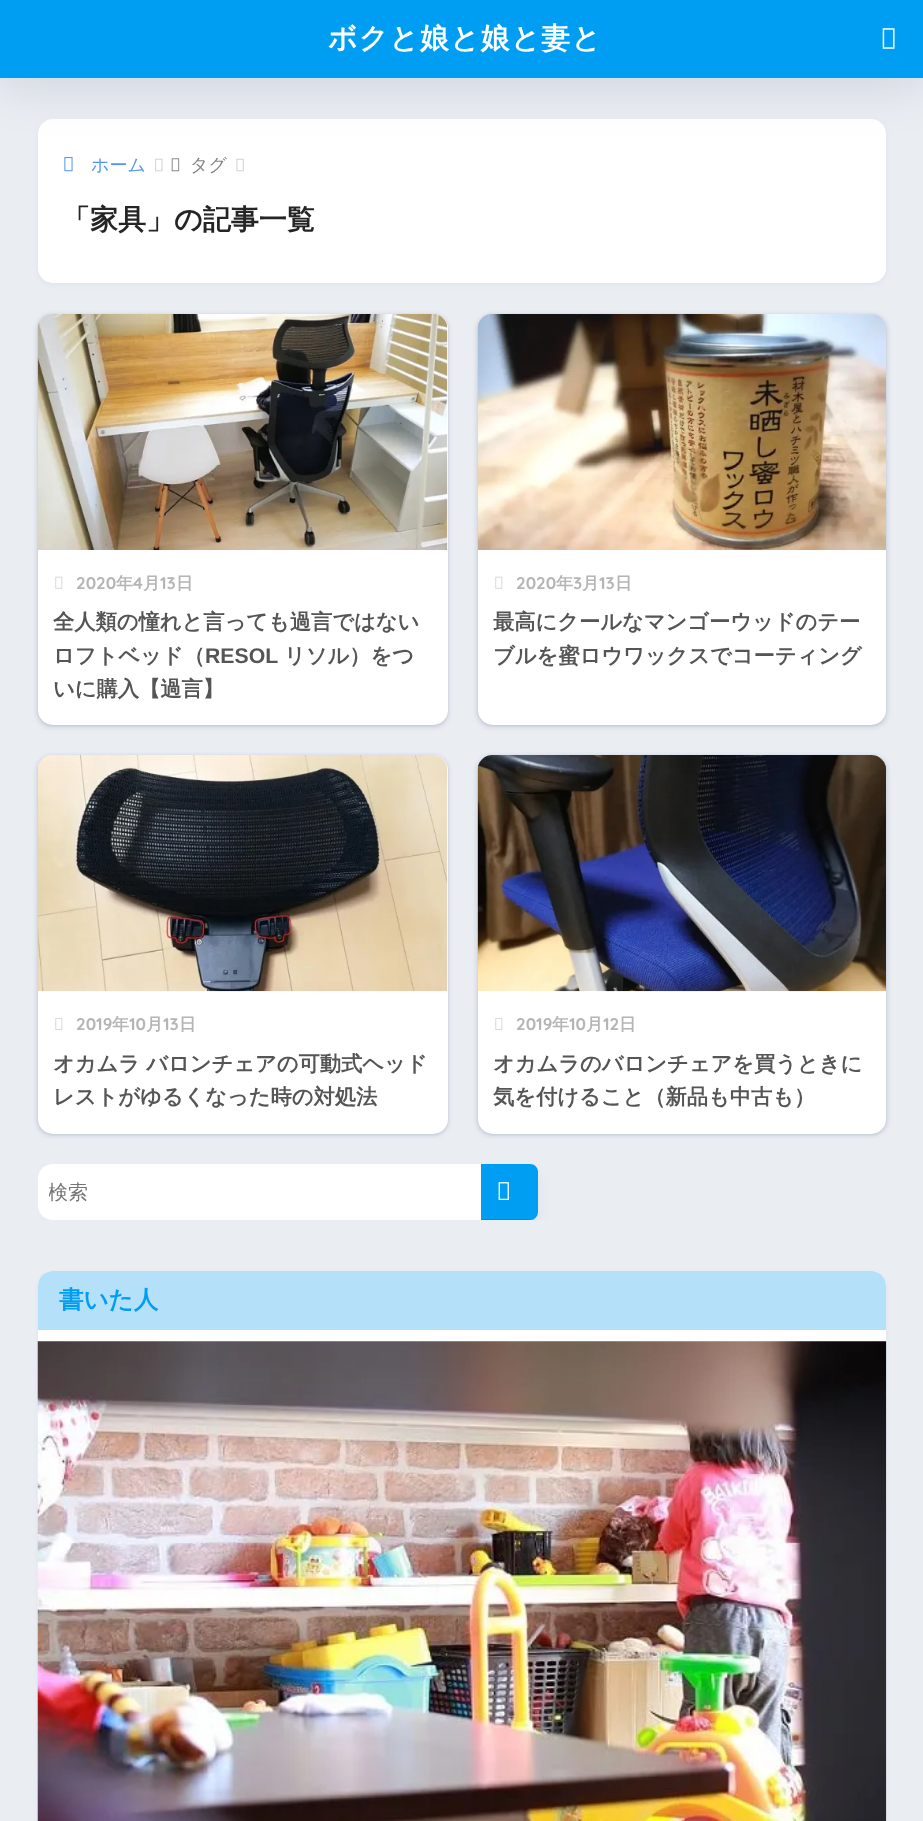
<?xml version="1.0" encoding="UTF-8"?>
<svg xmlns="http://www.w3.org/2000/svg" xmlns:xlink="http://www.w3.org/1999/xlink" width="923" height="1821">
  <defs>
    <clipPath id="clip1"><path d="M 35 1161 h 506 v 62 h -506 z m 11 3 h 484 c 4.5 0 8 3.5 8 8 v 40 c 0 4.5 -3.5 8 -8 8 h -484 c -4.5 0 -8 -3.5 -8 -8 v -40 c 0 -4.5 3.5 -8 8 -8 z" clip-rule="evenodd" /></clipPath>
    <clipPath id="clip2"><rect x="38" y="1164" width="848" height="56" rx="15" /></clipPath>
    <clipPath id="clip3"><rect x="49" y="1179" width="424" height="27" /></clipPath>
  </defs>
  <rect width="100%" height="100%" fill="#eaedf2" />
  <rect x="38" y="121" width="848" height="164" rx="15" fill="#4385bb" fill-opacity="0.07" filter="blur(2.5px)" />
  <rect x="38" y="119" width="848" height="164" rx="15" fill="#ffffff" />
  <image x="64" y="157" width="9" height="15" xlink:href="image2.png" />
  <image x="155" y="158" width="8" height="14" xlink:href="image3.png" />
  <image x="171" y="158" width="9" height="14" xlink:href="image4.png" />
  <image x="236" y="158" width="8" height="14" xlink:href="image5.png" />
  <rect width="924" height="78" fill="#000c42" fill-opacity="0.15" filter="blur(28px)" />
  <rect width="923" height="78" fill="#009ef3" />
  <image x="882" y="28" width="13" height="21" xlink:href="image1.png" />
  <rect x="36" y="314" width="413" height="414" rx="16" fill="#182c54" fill-opacity="0.1" filter="blur(2px)" />
  <rect x="38" y="315" width="410" height="411" rx="15" fill="#182c54" fill-opacity="0.1" filter="blur(1px)" />
  <rect x="38" y="314" width="410" height="411" rx="15" fill="#ffffff" />
  <image x="37" y="314" width="411" height="236" xlink:href="image6.png" />
  <image x="55" y="576" width="8" height="13" xlink:href="image7.png" />
  <rect x="476" y="314" width="412" height="414" rx="16" fill="#182c54" fill-opacity="0.1" filter="blur(2px)" />
  <rect x="478" y="315" width="408" height="411" rx="15" fill="#182c54" fill-opacity="0.1" filter="blur(1px)" />
  <rect x="478" y="314" width="408" height="411" rx="15" fill="#ffffff" />
  <image x="477" y="314" width="409" height="236" xlink:href="image8.png" />
  <image x="495" y="576" width="8" height="13" xlink:href="image7.png" />
  <rect x="36" y="755" width="413" height="381" rx="16" fill="#182c54" fill-opacity="0.1" filter="blur(2px)" />
  <rect x="38" y="756" width="410" height="379" rx="15" fill="#182c54" fill-opacity="0.1" filter="blur(1px)" />
  <rect x="38" y="755" width="410" height="379" rx="15" fill="#ffffff" />
  <image x="37" y="755" width="411" height="237" xlink:href="image9.png" />
  <image x="55" y="1018" width="8" height="12" xlink:href="image10.png" />
  <rect x="476" y="755" width="412" height="381" rx="16" fill="#182c54" fill-opacity="0.1" filter="blur(2px)" />
  <rect x="478" y="756" width="408" height="379" rx="15" fill="#182c54" fill-opacity="0.1" filter="blur(1px)" />
  <rect x="478" y="755" width="408" height="379" rx="15" fill="#ffffff" />
  <image x="477" y="755" width="409" height="237" xlink:href="image11.png" />
  <image x="495" y="1018" width="8" height="12" xlink:href="image10.png" />
  <g clip-path="url(#clip1)">
    <rect x="38" y="1164" width="500" height="56" rx="8" fill="#001e64" fill-opacity="0.1" filter="blur(0.5px)" />
  </g>
  <g clip-path="url(#clip2)">
    <rect x="41" y="1175" width="493" height="49" rx="4" fill="#000c42" fill-opacity="0.1" filter="blur(8px)" />
  </g>
  <path d="M 53 1164 h 477 c 4.5 0 8 3.5 8 8 v 40 c 0 4.5 -3.5 8 -8 8 h -477 c -8.5 0 -15 -6.5 -15 -15 v -26 c 0 -8.5 6.5 -15 15 -15 z" fill="#ffffff" />
  <path d="M 481 1164 h 49 c 4.5 0 8 3.5 8 8 v 40 c 0 4.5 -3.5 8 -8 8 h -49 z" fill="#009ef3" />
  <rect x="481" y="1219" width="53" height="1" fill="#000000" fill-opacity="0.1" />
  <image x="498" y="1182" width="11" height="18" xlink:href="image12.png" />
  <rect x="38" y="1274" width="848" height="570" rx="15" fill="#4385bb" fill-opacity="0.07" filter="blur(2.5px)" />
  <rect x="38" y="1271" width="848" height="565" rx="15" fill="#ffffff" />
  <path d="M 53 1271 h 818 c 8.5 0 15 6.5 15 15 v 44 h -848 v -44 c 0 -8.5 6.5 -15 15 -15 z" fill="#b4e0fa" />
  <image x="37" y="1341" width="850" height="480" xlink:href="image13.png" />
  <text x="328" y="48" style="font-family: WenQuanYi Zen Hei; font-size: 28.75px; font-weight: bold; letter-spacing: 1.25px; fill: #ffffff">ボクと娘と娘と妻と</text>
  <text x="91" y="171" style="font-family: WenQuanYi Zen Hei; font-size: 18px; font-weight: 500; fill: #4f96f6">ホーム</text>
  <text x="190" y="171" style="font-family: WenQuanYi Zen Hei; font-size: 18px; font-weight: 500; fill: #808080">タグ</text>
  <text x="62" y="229" style="font-family: WenQuanYi Zen Hei; font-size: 28px; font-weight: bold; fill: #252525">「家具」の記事一覧</text>
  <text x="76" y="589" style="font-family: Quicksand; font-size: 17px; font-weight: bold; fill: #b5b5b5">2020</text>
  <text x="116" y="589" style="font-family: WenQuanYi Zen Hei; font-size: 17px; font-weight: bold; fill: #b5b5b5">年</text>
  <text x="133" y="589" style="font-family: Quicksand; font-size: 17px; font-weight: bold; fill: #b5b5b5">4</text>
  <text x="143" y="589" style="font-family: WenQuanYi Zen Hei; font-size: 17px; font-weight: bold; fill: #b5b5b5">月</text>
  <text x="160" y="589" style="font-family: Quicksand; font-size: 17px; font-weight: bold; fill: #b5b5b5">13</text>
  <text x="176" y="589" style="font-family: WenQuanYi Zen Hei; font-size: 17px; font-weight: bold; fill: #b5b5b5">日</text>
  <text x="53" y="629" style="font-family: WenQuanYi Zen Hei; font-size: 21.25px; font-weight: bold; fill: #555555">全人類の憧れと言っても過言ではない</text>
  <text x="53" y="663" style="font-family: WenQuanYi Zen Hei; font-size: 21.25px; font-weight: bold; fill: #555555">ロフトベッド（</text>
  <text x="205" y="663" style="font-family: Liberation Sans; font-size: 21.25px; font-weight: bold; fill: #555555">RESOL</text>
  <text x="284" y="663" style="font-family: WenQuanYi Zen Hei; font-size: 21.25px; font-weight: bold; fill: #555555">リソル）をつ</text>
  <text x="53" y="696" style="font-family: WenQuanYi Zen Hei; font-size: 21.25px; font-weight: bold; fill: #555555">いに購入【過言】</text>
  <text x="516" y="589" style="font-family: Quicksand; font-size: 17px; font-weight: bold; fill: #b5b5b5">2020</text>
  <text x="556" y="589" style="font-family: WenQuanYi Zen Hei; font-size: 17px; font-weight: bold; fill: #b5b5b5">年</text>
  <text x="573" y="589" style="font-family: Quicksand; font-size: 17px; font-weight: bold; fill: #b5b5b5">3</text>
  <text x="582" y="589" style="font-family: WenQuanYi Zen Hei; font-size: 17px; font-weight: bold; fill: #b5b5b5">月</text>
  <text x="599" y="589" style="font-family: Quicksand; font-size: 17px; font-weight: bold; fill: #b5b5b5">13</text>
  <text x="615" y="589" style="font-family: WenQuanYi Zen Hei; font-size: 17px; font-weight: bold; fill: #b5b5b5">日</text>
  <text x="493" y="629" style="font-family: WenQuanYi Zen Hei; font-size: 21.25px; font-weight: bold; fill: #555555">最高にクールなマンゴーウッドのテー</text>
  <text x="493" y="663" style="font-family: WenQuanYi Zen Hei; font-size: 21.25px; font-weight: bold; fill: #555555">ブルを蜜ロウワックスでコーティング</text>
  <text x="76" y="1030" style="font-family: Quicksand; font-size: 17px; font-weight: bold; fill: #b5b5b5">2019</text>
  <text x="112" y="1030" style="font-family: WenQuanYi Zen Hei; font-size: 17px; font-weight: bold; fill: #b5b5b5">年</text>
  <text x="129" y="1030" style="font-family: Quicksand; font-size: 17px; font-weight: bold; fill: #b5b5b5">10</text>
  <text x="146" y="1030" style="font-family: WenQuanYi Zen Hei; font-size: 17px; font-weight: bold; fill: #b5b5b5">月</text>
  <text x="163" y="1030" style="font-family: Quicksand; font-size: 17px; font-weight: bold; fill: #b5b5b5">13</text>
  <text x="179" y="1030" style="font-family: WenQuanYi Zen Hei; font-size: 17px; font-weight: bold; fill: #b5b5b5">日</text>
  <text x="53" y="1071" style="font-family: WenQuanYi Zen Hei; font-size: 21.25px; font-weight: bold; fill: #555555">オカムラ バロンチェアの可動式ヘッド</text>
  <text x="53" y="1104" style="font-family: WenQuanYi Zen Hei; font-size: 21.25px; font-weight: bold; fill: #555555">レストがゆるくなった時の対処法</text>
  <text x="516" y="1030" style="font-family: Quicksand; font-size: 17px; font-weight: bold; fill: #b5b5b5">2019</text>
  <text x="552" y="1030" style="font-family: WenQuanYi Zen Hei; font-size: 17px; font-weight: bold; fill: #b5b5b5">年</text>
  <text x="569" y="1030" style="font-family: Quicksand; font-size: 17px; font-weight: bold; fill: #b5b5b5">10</text>
  <text x="586" y="1030" style="font-family: WenQuanYi Zen Hei; font-size: 17px; font-weight: bold; fill: #b5b5b5">月</text>
  <text x="603" y="1030" style="font-family: Quicksand; font-size: 17px; font-weight: bold; fill: #b5b5b5">12</text>
  <text x="619" y="1030" style="font-family: WenQuanYi Zen Hei; font-size: 17px; font-weight: bold; fill: #b5b5b5">日</text>
  <text x="493" y="1071" style="font-family: WenQuanYi Zen Hei; font-size: 21.25px; font-weight: bold; fill: #555555">オカムラのバロンチェアを買うときに</text>
  <text x="493" y="1104" style="font-family: WenQuanYi Zen Hei; font-size: 21.25px; font-weight: bold; fill: #555555">気を付けること（新品も中古も）</text>
  <g clip-path="url(#clip3)">
    <text x="48" y="1199" style="font-family: WenQuanYi Zen Hei; font-size: 20px; font-weight: 500; fill: #757575">検索</text>
  </g>
  <text x="59" y="1308" style="font-family: WenQuanYi Zen Hei; font-size: 24.5px; font-weight: bold; fill: #009ef3">書いた人</text>
</svg>
